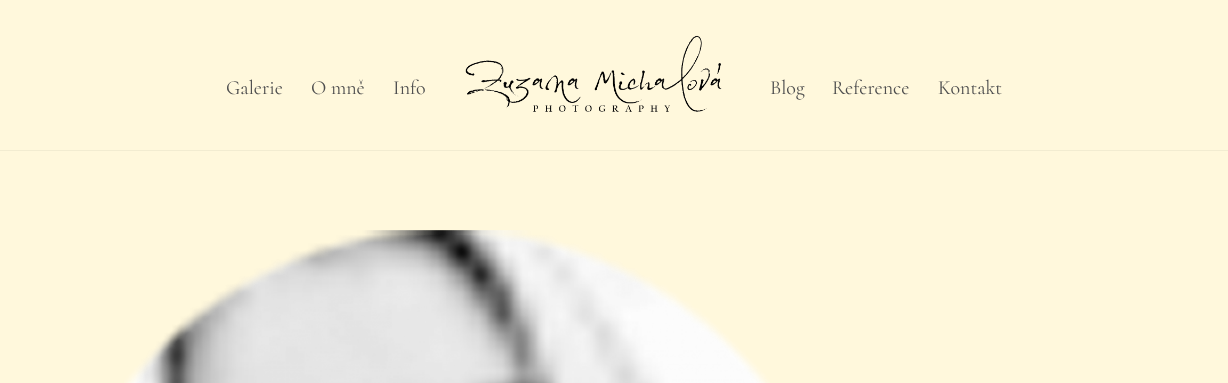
<?xml version="1.0" encoding="UTF-8"?>
<svg xmlns="http://www.w3.org/2000/svg" xmlns:xlink="http://www.w3.org/1999/xlink" width="1228" height="383">
  <rect width="100%" height="100%" fill="#fff8dc" />
  <rect y="150" width="1228" height="1" fill="#f2ecd1" />
  <image x="465" y="35" width="257" height="77" xlink:href="image1.png" />
  <image x="124" y="230" width="646" height="153" xlink:href="image2.png" />
  <text x="226" y="94" style="font-family: Cormorant; font-size: 20px; font-weight: 300; fill: #4f4f4f">Galerie</text>
  <text x="311" y="94" style="font-family: Cormorant; font-size: 20px; font-weight: 300; fill: #4f4f4f">O mně</text>
  <text x="393" y="94" style="font-family: Cormorant; font-size: 20px; font-weight: 300; fill: #4f4f4f">Info</text>
  <text x="770" y="94" style="font-family: Cormorant; font-size: 20px; font-weight: 300; fill: #4f4f4f">Blog</text>
  <text x="832" y="94" style="font-family: Cormorant; font-size: 20px; font-weight: 300; fill: #4f4f4f">Reference</text>
  <text x="938" y="94" style="font-family: Cormorant; font-size: 20px; font-weight: 300; fill: #4f4f4f">Kontakt</text>
</svg>
